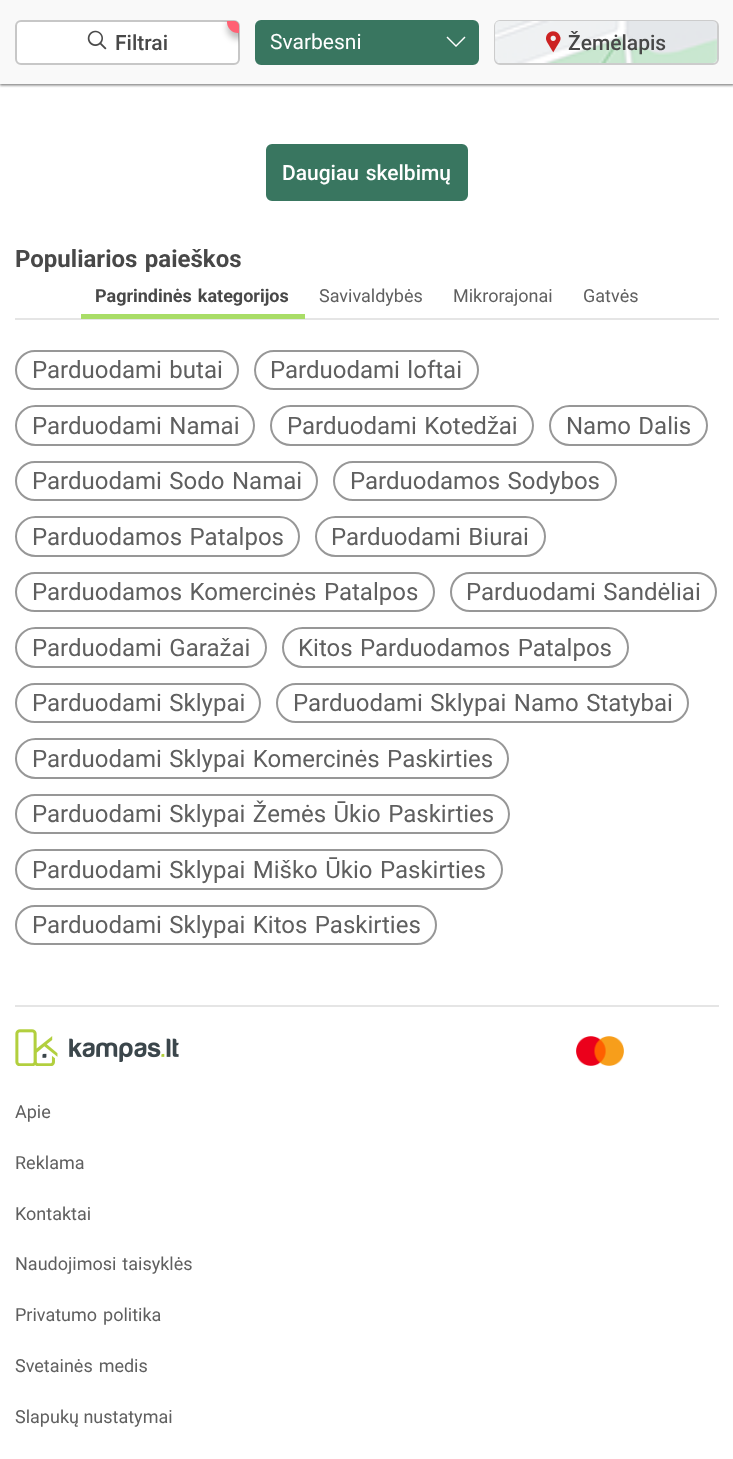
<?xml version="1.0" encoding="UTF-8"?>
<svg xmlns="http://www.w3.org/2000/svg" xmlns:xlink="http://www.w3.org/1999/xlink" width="733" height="1459">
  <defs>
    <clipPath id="clip1"><rect x="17" y="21" width="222" height="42" rx="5" /></clipPath>
    <clipPath id="clip2"><rect x="17" y="21" width="222" height="42" rx="5" /></clipPath>
  </defs>
  <rect width="100%" height="100%" fill="#ffffff" />
  <rect width="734" height="84" fill="#000000" fill-opacity="0.5" filter="blur(1.5px)" />
  <rect y="2" width="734" height="84" fill="#000000" fill-opacity="0.25" filter="blur(1px)" />
  <rect width="733" height="84" fill="#f9f9f9" />
  <rect x="16" y="21" width="223" height="43" rx="5" fill="#ffffff" stroke="#c7c7c7" stroke-width="2" />
  <image x="87" y="30" width="20" height="20" xlink:href="image1.png" />
  <g clip-path="url(#clip1)">
    <rect x="227" y="17" width="22" height="22" rx="11" fill="#000000" fill-opacity="0.25" filter="blur(3px)" />
  </g>
  <g clip-path="url(#clip2)">
    <circle cx="238" cy="22" r="11" fill="#ff6174" />
  </g>
  <rect x="256" y="21" width="222" height="43" rx="5" fill="#397660" stroke="#397660" stroke-width="2" />
  <path d="M 447.5 36.5 l -1 1 l 9.5 9.5 l 9.5 -9.5 l -1 -1 l -8.5 8.5 z" fill="#ffffff" />
  <rect x="495" y="21" width="223" height="43" rx="5" fill="none" stroke="#cccccc" stroke-width="2" />
  <image x="495" y="21" width="222" height="42" xlink:href="image2.png" />
  <image x="546" y="31" width="15" height="22" xlink:href="image3.png" />
  <rect x="267" y="145" width="200" height="55" rx="5" fill="#397660" stroke="#397660" stroke-width="2" />
  <rect x="15" y="318" width="704" height="2" fill="#e5e5e5" />
  <rect x="81" y="314" width="224" height="5" fill="#a9dd67" />
  <rect x="16" y="351" width="222" height="38" rx="19" fill="none" stroke="#979797" stroke-width="2" />
  <rect x="255" y="351" width="223" height="38" rx="19" fill="none" stroke="#979797" stroke-width="2" />
  <rect x="16" y="406" width="238" height="39" rx="19.5" fill="none" stroke="#979797" stroke-width="2" />
  <rect x="271" y="406" width="262" height="39" rx="19.5" fill="none" stroke="#979797" stroke-width="2" />
  <rect x="550" y="406" width="157" height="39" rx="19.5" fill="none" stroke="#979797" stroke-width="2" />
  <rect x="16" y="462" width="301" height="38" rx="19" fill="none" stroke="#979797" stroke-width="2" />
  <rect x="334" y="462" width="282" height="38" rx="19" fill="none" stroke="#979797" stroke-width="2" />
  <rect x="16" y="517" width="283" height="39" rx="19.5" fill="none" stroke="#979797" stroke-width="2" />
  <rect x="316" y="517" width="229" height="39" rx="19.5" fill="none" stroke="#979797" stroke-width="2" />
  <rect x="16" y="573" width="418" height="38" rx="19" fill="none" stroke="#979797" stroke-width="2" />
  <rect x="451" y="573" width="265" height="38" rx="19" fill="none" stroke="#979797" stroke-width="2" />
  <rect x="16" y="628" width="250" height="39" rx="19.5" fill="none" stroke="#979797" stroke-width="2" />
  <rect x="283" y="628" width="345" height="39" rx="19.5" fill="none" stroke="#979797" stroke-width="2" />
  <rect x="16" y="684" width="244" height="38" rx="19" fill="none" stroke="#979797" stroke-width="2" />
  <rect x="277" y="684" width="411" height="38" rx="19" fill="none" stroke="#979797" stroke-width="2" />
  <rect x="16" y="739" width="492" height="39" rx="19.5" fill="none" stroke="#979797" stroke-width="2" />
  <rect x="16" y="795" width="493" height="38" rx="19" fill="none" stroke="#979797" stroke-width="2" />
  <rect x="16" y="850" width="486" height="39" rx="19.5" fill="none" stroke="#979797" stroke-width="2" />
  <rect x="16" y="906" width="420" height="38" rx="19" fill="none" stroke="#979797" stroke-width="2" />
  <rect x="15" y="1005" width="704" height="2" fill="#e5e5e5" />
  <image x="576" y="1036" width="48" height="30" xlink:href="image4.png" />
  <image x="15" y="1029" width="164" height="37" xlink:href="image5.png" />
  <text x="115" y="50" style="font-family: Roboto; font-size: 21px; font-weight: 500; fill: #484848">Filtrai</text>
  <text x="270" y="49" style="font-family: Roboto; font-size: 21px; fill: #ffffff">Svarbesni</text>
  <text x="568" y="50" style="font-family: Roboto; font-size: 21px; font-weight: 500; fill: #484848">Žemėlapis</text>
  <text x="282" y="180" word-spacing="1.5" style="font-family: Roboto; font-size: 21px; font-weight: 500; fill: #ffffff">Daugiau skelbimų</text>
  <text x="15" y="267" word-spacing="1.5" style="font-family: Roboto; font-size: 24px; font-weight: bold; fill: #484848">Populiarios paieškos</text>
  <text x="95" y="302" word-spacing="1.5" style="font-family: Roboto; font-size: 18px; font-weight: bold; fill: #484848">Pagrindinės kategorijos</text>
  <text x="319" y="302" style="font-family: Roboto; font-size: 18px; fill: #5f5f5f">Savivaldybės</text>
  <text x="453" y="302" style="font-family: Roboto; font-size: 18px; fill: #5f5f5f">Mikrorajonai</text>
  <text x="583" y="302" style="font-family: Roboto; font-size: 18px; fill: #5f5f5f">Gatvės</text>
  <text x="32" y="378" word-spacing="1.5" style="font-family: Roboto; font-size: 24px; fill: #5f5f5f">Parduodami butai</text>
  <text x="270" y="378" word-spacing="1.5" style="font-family: Roboto; font-size: 24px; fill: #5f5f5f">Parduodami loftai</text>
  <text x="32" y="434" word-spacing="1.5" style="font-family: Roboto; font-size: 24px; fill: #5f5f5f">Parduodami Namai</text>
  <text x="287" y="434" word-spacing="1.5" style="font-family: Roboto; font-size: 24px; fill: #5f5f5f">Parduodami Kotedžai</text>
  <text x="566" y="434" word-spacing="1.5" style="font-family: Roboto; font-size: 24px; fill: #5f5f5f">Namo Dalis</text>
  <text x="32" y="489" word-spacing="1.5" style="font-family: Roboto; font-size: 24px; fill: #5f5f5f">Parduodami Sodo Namai</text>
  <text x="350" y="489" word-spacing="1.5" style="font-family: Roboto; font-size: 24px; fill: #5f5f5f">Parduodamos Sodybos</text>
  <text x="32" y="545" word-spacing="1.5" style="font-family: Roboto; font-size: 24px; fill: #5f5f5f">Parduodamos Patalpos</text>
  <text x="331" y="545" word-spacing="1.5" style="font-family: Roboto; font-size: 24px; fill: #5f5f5f">Parduodami Biurai</text>
  <text x="32" y="600" word-spacing="1.5" style="font-family: Roboto; font-size: 24px; fill: #5f5f5f">Parduodamos Komercinės Patalpos</text>
  <text x="466" y="600" word-spacing="1.5" style="font-family: Roboto; font-size: 24px; fill: #5f5f5f">Parduodami Sandėliai</text>
  <text x="32" y="656" word-spacing="1.5" style="font-family: Roboto; font-size: 24px; fill: #5f5f5f">Parduodami Garažai</text>
  <text x="298" y="656" word-spacing="1.5" style="font-family: Roboto; font-size: 24px; fill: #5f5f5f">Kitos Parduodamos Patalpos</text>
  <text x="32" y="711" word-spacing="1.5" style="font-family: Roboto; font-size: 24px; fill: #5f5f5f">Parduodami Sklypai</text>
  <text x="293" y="711" word-spacing="1.5" style="font-family: Roboto; font-size: 24px; fill: #5f5f5f">Parduodami Sklypai Namo Statybai</text>
  <text x="32" y="767" word-spacing="1.5" style="font-family: Roboto; font-size: 24px; fill: #5f5f5f">Parduodami Sklypai Komercinės Paskirties</text>
  <text x="32" y="822" word-spacing="1.5" style="font-family: Roboto; font-size: 24px; fill: #5f5f5f">Parduodami Sklypai Žemės Ūkio Paskirties</text>
  <text x="32" y="878" word-spacing="1.5" style="font-family: Roboto; font-size: 24px; fill: #5f5f5f">Parduodami Sklypai Miško Ūkio Paskirties</text>
  <text x="32" y="933" word-spacing="1.5" style="font-family: Roboto; font-size: 24px; fill: #5f5f5f">Parduodami Sklypai Kitos Paskirties</text>
  <text x="15" y="1118" style="font-family: Roboto; font-size: 18px; fill: #5f5f5f">Apie</text>
  <text x="15" y="1169" style="font-family: Roboto; font-size: 18px; fill: #5f5f5f">Reklama</text>
  <text x="15" y="1220" style="font-family: Roboto; font-size: 18px; fill: #5f5f5f">Kontaktai</text>
  <text x="15" y="1270" word-spacing="1.5" style="font-family: Roboto; font-size: 18px; fill: #5f5f5f">Naudojimosi taisyklės</text>
  <text x="15" y="1321" word-spacing="1.5" style="font-family: Roboto; font-size: 18px; fill: #5f5f5f">Privatumo politika</text>
  <text x="15" y="1372" word-spacing="1.5" style="font-family: Roboto; font-size: 18px; fill: #5f5f5f">Svetainės medis</text>
  <text x="15" y="1423" style="font-family: Roboto; font-size: 18px; fill: #5f5f5f">Slapukų nustatymai</text>
</svg>
